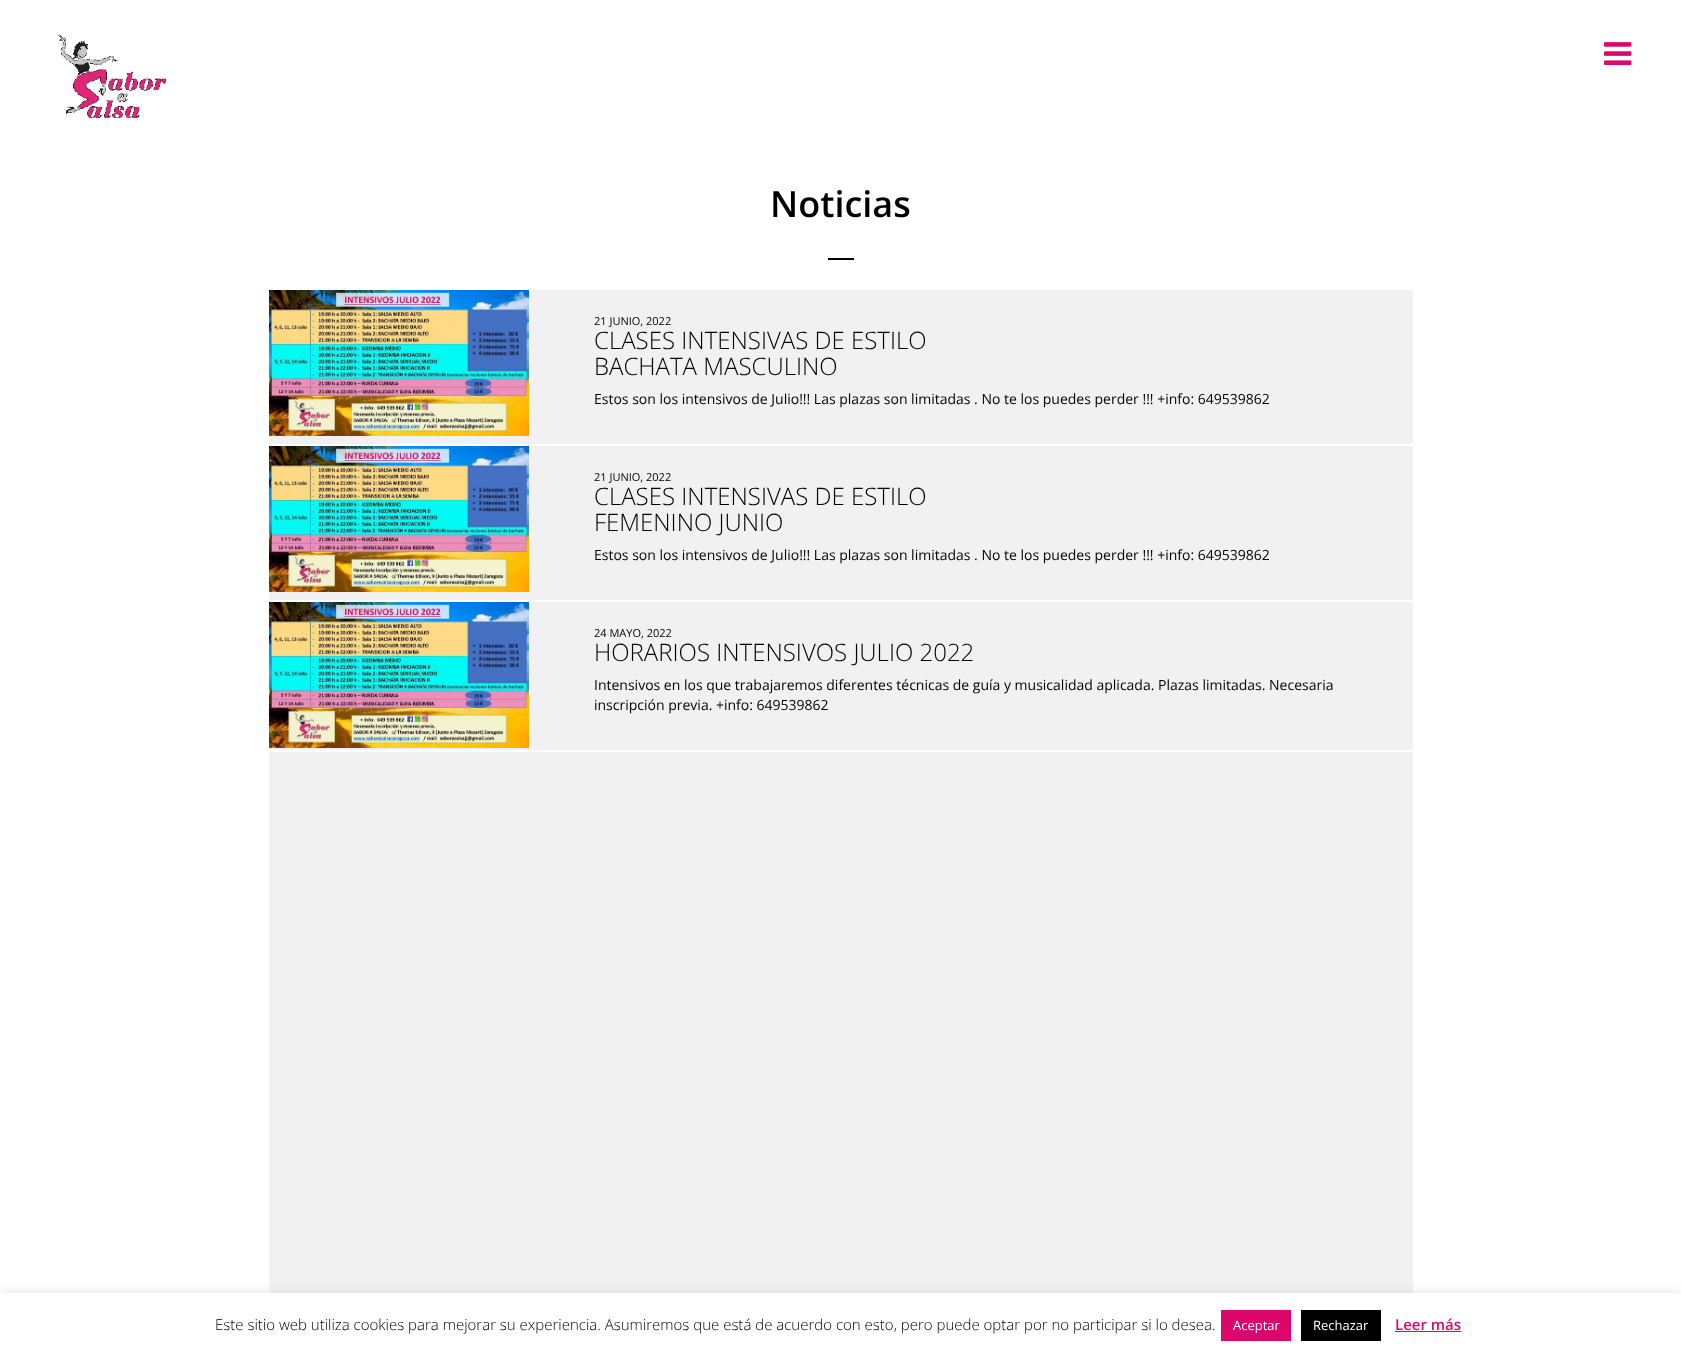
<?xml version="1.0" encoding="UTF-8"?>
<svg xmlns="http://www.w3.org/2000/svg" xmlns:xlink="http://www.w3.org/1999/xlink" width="1681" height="1358">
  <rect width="100%" height="100%" fill="#ffffff" />
  <image x="58" y="35" width="109" height="83" xlink:href="image1.png" />
  <image x="1604" y="42" width="28" height="23" xlink:href="image2.png" />
  <rect x="828" y="258" width="26" height="2" fill="#000000" />
  <rect x="269" y="290" width="1144" height="154" fill="#f1f1f1" />
  <image x="269" y="290" width="260" height="146" xlink:href="image3.png" />
  <rect x="269" y="446" width="1144" height="154" fill="#f1f1f1" />
  <image x="269" y="446" width="260" height="146" xlink:href="image3.png" />
  <rect x="269" y="602" width="1144" height="148" fill="#f1f1f1" />
  <image x="269" y="602" width="260" height="146" xlink:href="image3.png" />
  <rect x="269" y="752" width="1144" height="541" fill="#f1f1f1" />
  <rect y="1292" width="1681" height="65" fill="#acabab" fill-opacity="0.3" filter="blur(5px)" />
  <rect y="1293" width="1681" height="65" fill="#ffffff" />
  <rect x="1221" y="1310" width="70" height="31" fill="#db076c" />
  <rect x="1301" y="1310" width="80" height="31" fill="#000000" />
  <rect x="1395" y="1331" width="66" height="1" fill="#db076c" />
  <text x="770" y="217" style="font-family: Open Sans; font-size: 36px; font-weight: 600; fill: #000000">Noticias</text>
  <text x="594" y="325" style="font-family: Open Sans; font-size: 11px; fill: #000000">21 JUNIO, 2022</text>
  <text x="594" y="349" style="font-family: Open Sans; font-size: 24px; font-weight: 300; fill: #000000">CLASES INTENSIVAS DE ESTILO</text>
  <text x="594" y="375" style="font-family: Open Sans; font-size: 24px; font-weight: 300; fill: #000000">BACHATA MASCULINO</text>
  <text x="594" y="404" style="font-family: Open Sans; font-size: 14px; fill: #000000">Estos son los intensivos de Julio!!! Las plazas son limitadas . No te los puedes perder !!! +info: 649539862</text>
  <text x="594" y="481" style="font-family: Open Sans; font-size: 11px; fill: #000000">21 JUNIO, 2022</text>
  <text x="594" y="505" style="font-family: Open Sans; font-size: 24px; font-weight: 300; fill: #000000">CLASES INTENSIVAS DE ESTILO</text>
  <text x="594" y="531" style="font-family: Open Sans; font-size: 24px; font-weight: 300; fill: #000000">FEMENINO JUNIO</text>
  <text x="594" y="560" style="font-family: Open Sans; font-size: 14px; fill: #000000">Estos son los intensivos de Julio!!! Las plazas son limitadas . No te los puedes perder !!! +info: 649539862</text>
  <text x="594" y="637" style="font-family: Open Sans; font-size: 11px; fill: #000000">24 MAYO, 2022</text>
  <text x="594" y="661" style="font-family: Open Sans; font-size: 24px; font-weight: 300; fill: #000000">HORARIOS INTENSIVOS JULIO 2022</text>
  <text x="594" y="690" style="font-family: Open Sans; font-size: 14px; fill: #000000">Intensivos en los que trabajaremos diferentes técnicas de guía y musicalidad aplicada. Plazas limitadas. Necesaria</text>
  <text x="594" y="710" style="font-family: Open Sans; font-size: 14px; fill: #000000">inscripción previa. +info: 649539862</text>
  <text x="215" y="1330" style="font-family: Open Sans; font-size: 15px; font-weight: 300; fill: #000000">Este sitio web utiliza cookies para mejorar su experiencia. Asumiremos que está de acuerdo con esto, pero puede optar por no participar si lo desea.</text>
  <text x="1233" y="1330" style="font-family: Open Sans; font-size: 13px; fill: #ffffff">Aceptar</text>
  <text x="1313" y="1330" style="font-family: Open Sans; font-size: 13px; fill: #ffffff">Rechazar</text>
  <text x="1395" y="1330" style="font-family: Open Sans; font-size: 15px; font-weight: 600; fill: #db076c">Leer más</text>
</svg>
